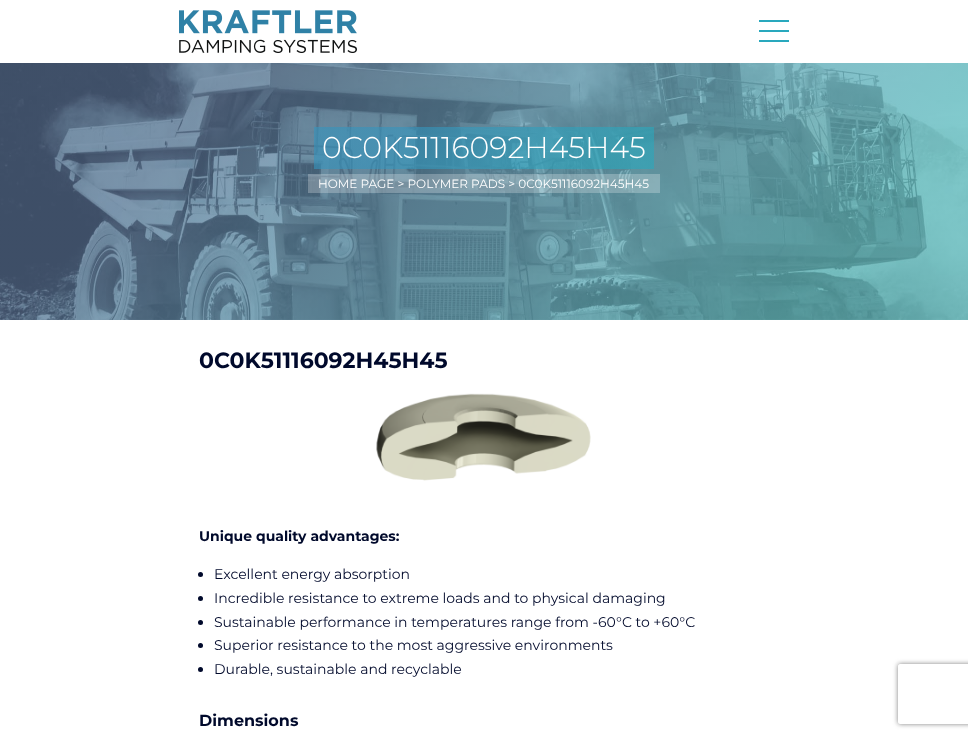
<?xml version="1.0" encoding="UTF-8"?>
<svg xmlns="http://www.w3.org/2000/svg" xmlns:xlink="http://www.w3.org/1999/xlink" width="968" height="738">
  <defs>
    <linearGradient id="g1" gradientUnits="userSpaceOnUse" x1="806" y1="482" x2="162" y2="-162"><stop offset="0.15" stop-color="#65bec2" stop-opacity="0.72" /><stop offset="0.5" stop-color="#6799b2" stop-opacity="0.73" /><stop offset="0.75" stop-color="#566d8f" stop-opacity="0.72" /></linearGradient>
    <linearGradient id="g2" gradientUnits="userSpaceOnUse" x1="580" y1="244" x2="389" y2="53"><stop offset="0.15" stop-color="#29a8bd" stop-opacity="0.6" /><stop offset="0.75" stop-color="#3594bd" stop-opacity="0.61" /></linearGradient>
    <clipPath id="clip1"><path d="M 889 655 h 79 v 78 h -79 z m 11 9 h 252 c 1 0 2 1 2 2 v 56 c 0 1 -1 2 -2 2 h -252 c -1 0 -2 -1 -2 -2 v -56 c 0 -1 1 -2 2 -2 z" clip-rule="evenodd" /></clipPath>
  </defs>
  <rect width="100%" height="100%" fill="#ffffff" />
  <image x="179" y="10" width="178" height="43" xlink:href="image1.png" />
  <rect x="759" y="30" width="30" height="2" fill="#29a8bd" />
  <rect x="759" y="20" width="30" height="2" fill="#29a8bd" />
  <rect x="759" y="40" width="30" height="2" fill="#29a8bd" />
  <image x="0" y="63" width="968" height="257" xlink:href="image2.png" />
  <rect y="63" width="968" height="257" fill="url(#g1)" />
  <rect x="314" y="127" width="340" height="42" fill="url(#g2)" />
  <rect x="308" y="174" width="352" height="19" fill="#ffffff" fill-opacity="0.25" />
  <image x="376" y="393" width="215" height="88" xlink:href="image3.png" />
  <circle cx="200.5" cy="574.5" r="2.5" fill="#00092b" />
  <circle cx="200.5" cy="598.5" r="2.5" fill="#00092b" />
  <circle cx="200.5" cy="622.5" r="2.5" fill="#00092b" />
  <circle cx="200.5" cy="645.5" r="2.5" fill="#00092b" />
  <circle cx="200.5" cy="669.5" r="2.5" fill="#00092b" />
  <g clip-path="url(#clip1)">
    <rect x="898" y="664" width="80" height="60" rx="2" fill="#808080" filter="blur(2.5px)" />
  </g>
  <text x="322" y="158" style="font-family: Montserrat; font-size: 30px; font-weight: 300; fill: #ffffff">0C0K51116092H45H45</text>
  <text x="318" y="188" style="font-family: Montserrat; font-size: 12px; fill: #ffffff">HOME PAGE &gt; POLYMER PADS &gt; 0C0K51116092H45H45</text>
  <text x="199" y="368" style="font-family: Montserrat; font-size: 22px; font-weight: bold; fill: #00092b">0C0K51116092H45H45</text>
  <text x="199" y="541" style="font-family: Montserrat; font-size: 14px; font-weight: bold; fill: #00092b">Unique quality advantages:</text>
  <text x="214" y="579" style="font-family: Montserrat; font-size: 14px; fill: #00092b">Excellent energy absorption</text>
  <text x="214" y="603" style="font-family: Montserrat; font-size: 14px; fill: #00092b">Incredible resistance to extreme loads and to physical damaging</text>
  <text x="214" y="627" style="font-family: Montserrat; font-size: 14px; fill: #00092b">Sustainable performance in temperatures range from -60°C to +60°C</text>
  <text x="214" y="650" style="font-family: Montserrat; font-size: 14px; fill: #00092b">Superior resistance to the most aggressive environments</text>
  <text x="214" y="674" style="font-family: Montserrat; font-size: 14px; fill: #00092b">Durable, sustainable and recyclable</text>
  <text x="199" y="726" style="font-family: Montserrat; font-size: 16px; font-weight: bold; fill: #00092b">Dimensions</text>
</svg>
